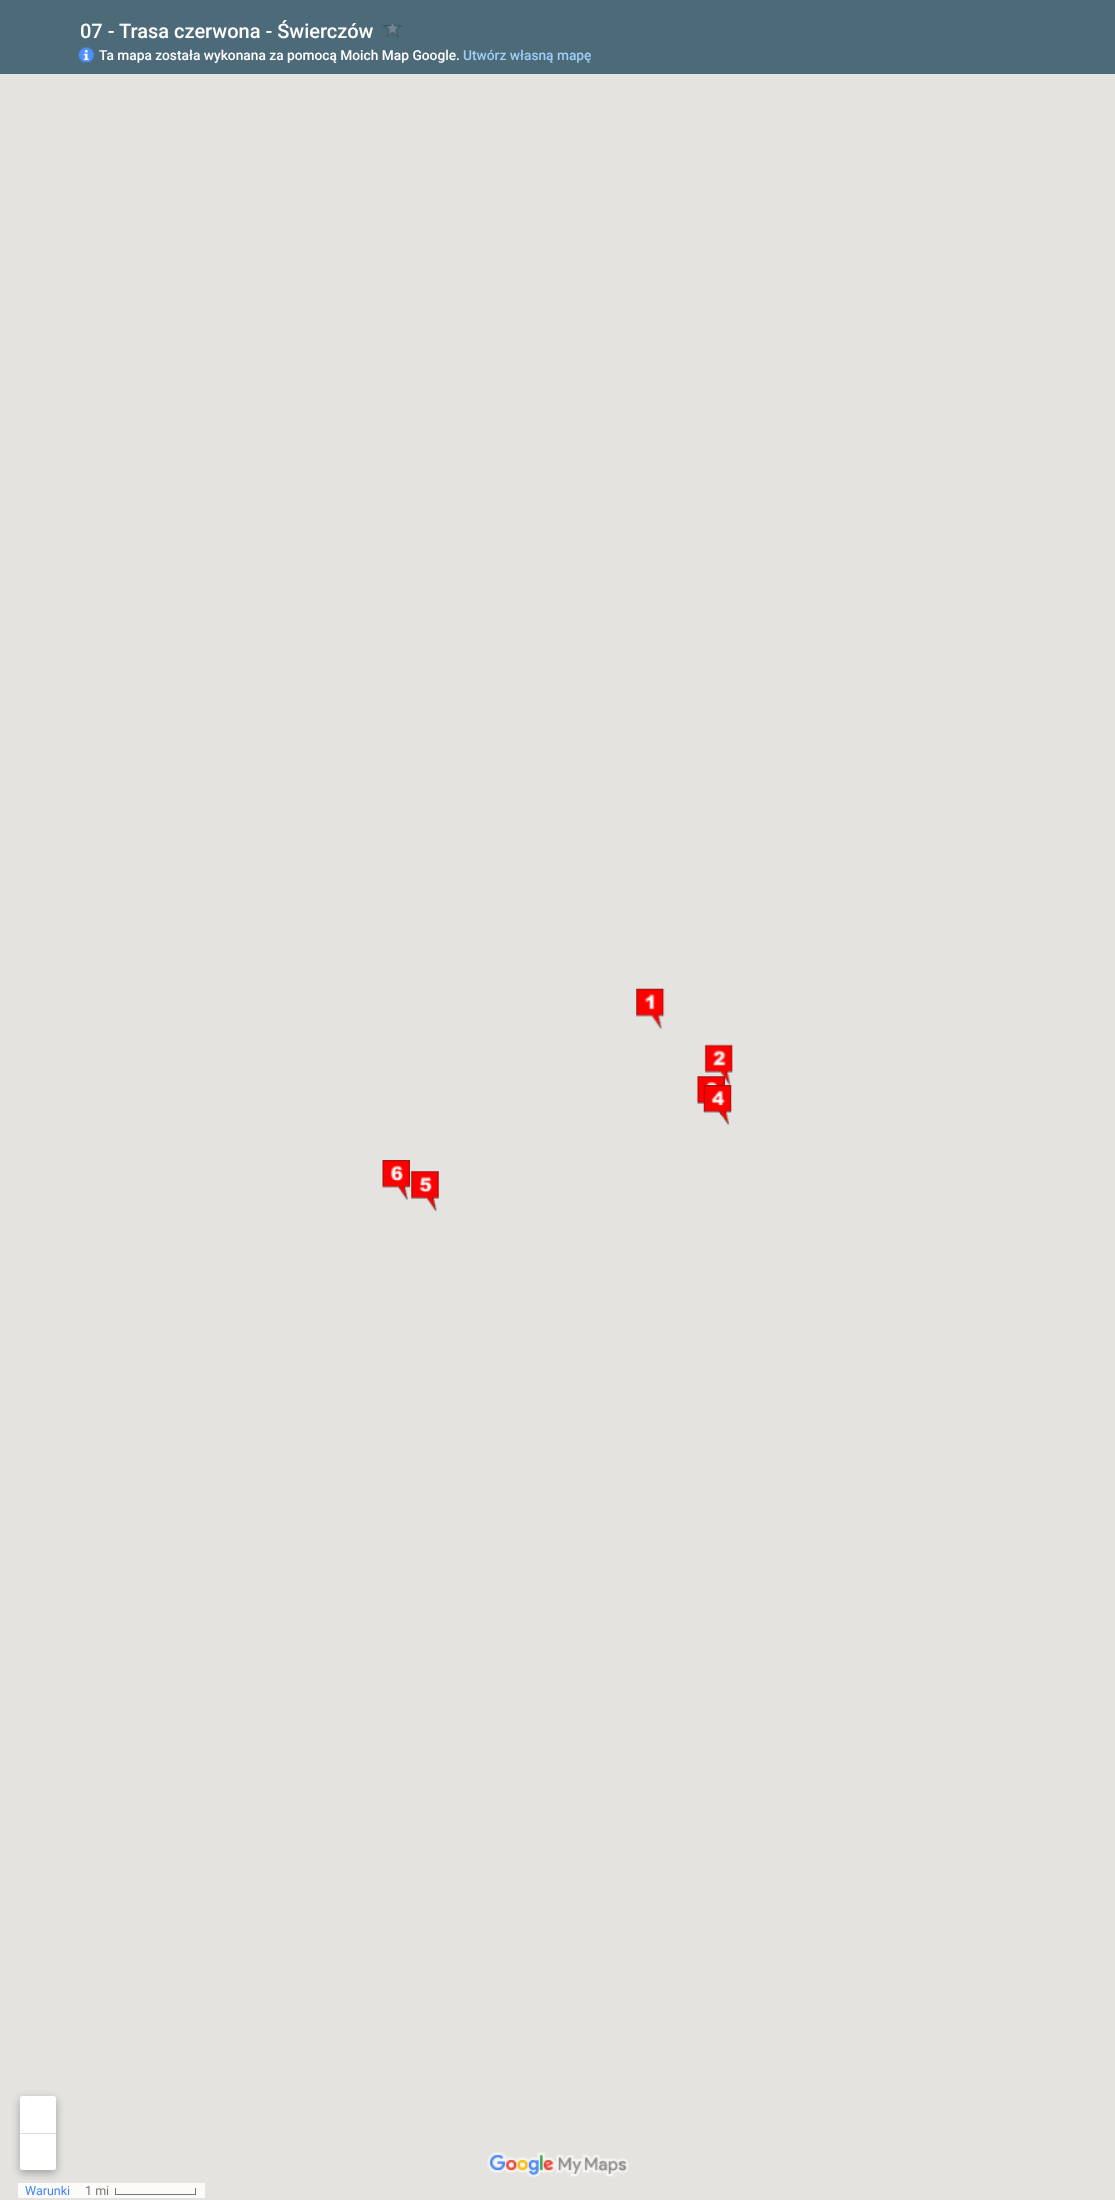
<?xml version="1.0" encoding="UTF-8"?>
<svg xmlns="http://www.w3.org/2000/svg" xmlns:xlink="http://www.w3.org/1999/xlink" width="1115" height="2200">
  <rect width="100%" height="100%" fill="#e5e3df" />
  <rect width="1115" height="74" fill="#4d6a79" />
  <image x="382" y="24" width="21" height="14" xlink:href="image1.png" />
  <image x="78" y="47" width="16" height="16" xlink:href="image2.png" />
  <image x="636" y="988" width="29" height="41" xlink:href="image3.png" />
  <image x="704" y="1044" width="29" height="41" xlink:href="image4.png" />
  <image x="697" y="1076" width="28" height="41" xlink:href="image5.png" />
  <image x="703" y="1085" width="29" height="40" xlink:href="image6.png" />
  <image x="382" y="1160" width="28" height="40" xlink:href="image7.png" />
  <image x="411" y="1171" width="28" height="41" xlink:href="image8.png" />
  <rect x="20" y="2099" width="36" height="74" rx="2.5" fill="#000000" fill-opacity="0.3" filter="blur(4px)" />
  <rect x="20" y="2096" width="36" height="74" rx="2.5" fill="#ffffff" />
  <rect x="20" y="2133" width="36" height="1" fill="#dddddd" />
  <image x="487" y="2152" width="142" height="26" xlink:href="image9.png" />
  <rect x="18" y="2183" width="187" height="15" fill="#fbfbfa" />
  <rect x="115" y="2194" width="81" height="1" fill="#777777" />
  <rect x="115" y="2188" width="1" height="7" fill="#777777" />
  <rect x="195" y="2188" width="1" height="7" fill="#777777" />
  <text x="80" y="38" style="font-family: Roboto; font-size: 20px; font-weight: 500; fill: #ffffff">07 - Trasa czerwona - Świerczów</text>
  <text x="99" y="60" style="font-family: Roboto; font-size: 13.75px; font-weight: 500; fill: #ffffff">Ta mapa została wykonana za pomocą Moich Map Google.</text>
  <text x="463" y="60" style="font-family: Roboto; font-size: 13.75px; font-weight: 500; fill: #9ecef5">Utwórz własną mapę</text>
  <text x="25" y="2195" style="font-family: Roboto; font-size: 12.5px; fill: #4285f4">Warunki</text>
  <text x="85" y="2195" style="font-family: Roboto; font-size: 12.5px; fill: #777777">1 mi</text>
</svg>
